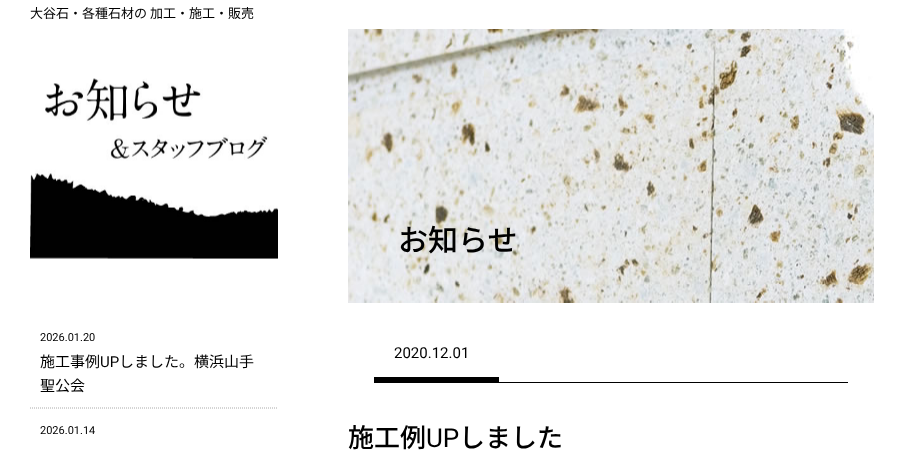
<?xml version="1.0" encoding="UTF-8"?>
<svg xmlns="http://www.w3.org/2000/svg" xmlns:xlink="http://www.w3.org/1999/xlink" width="904" height="454">
  <rect width="100%" height="100%" fill="#ffffff" />
  <image x="30" y="78" width="248" height="181" xlink:href="image1.png" />
  <path d="M 30 408 h 248" fill="none" stroke="#aaaaaa" stroke-dasharray="1 1" />
  <image x="348" y="29" width="526" height="274" xlink:href="image2.png" />
  <rect x="374" y="382" width="474" height="1" fill="#000000" />
  <rect x="374" y="377" width="125" height="5" fill="#000000" />
  <text x="30" y="18" style="font-family: Noto Sans JP; font-size: 13px; fill: #000000">大谷石・各種石材の 加工・施工・販売</text>
  <text x="40" y="341" style="font-family: Roboto; font-size: 11px; fill: #000000">2026.01.20</text>
  <text x="40" y="367" style="font-family: Noto Sans JP; font-size: 15px; fill: #000000">施工事例</text>
  <text x="100" y="367" style="font-family: Roboto; font-size: 15px; fill: #000000">UP</text>
  <text x="119" y="367" style="font-family: Noto Sans JP; font-size: 15px; fill: #000000">しました。横浜山手</text>
  <text x="40" y="391" style="font-family: Noto Sans JP; font-size: 15px; fill: #000000">聖公会</text>
  <text x="40" y="434" style="font-family: Roboto; font-size: 11px; fill: #000000">2026.01.14</text>
  <text x="398" y="251" style="font-family: Noto Sans JP; font-size: 30px; font-weight: 500; fill: #000000">お知らせ</text>
  <text x="394" y="358" style="font-family: Roboto; font-size: 15px; fill: #000000">2020.12.01</text>
  <text x="348" y="447" style="font-family: Noto Sans JP; font-size: 26px; font-weight: 500; fill: #000000">施工例</text>
  <text x="426" y="447" style="font-family: Roboto; font-size: 26px; fill: #000000">UP</text>
  <text x="459" y="447" style="font-family: Noto Sans JP; font-size: 26px; font-weight: 500; fill: #000000">しました</text>
</svg>
